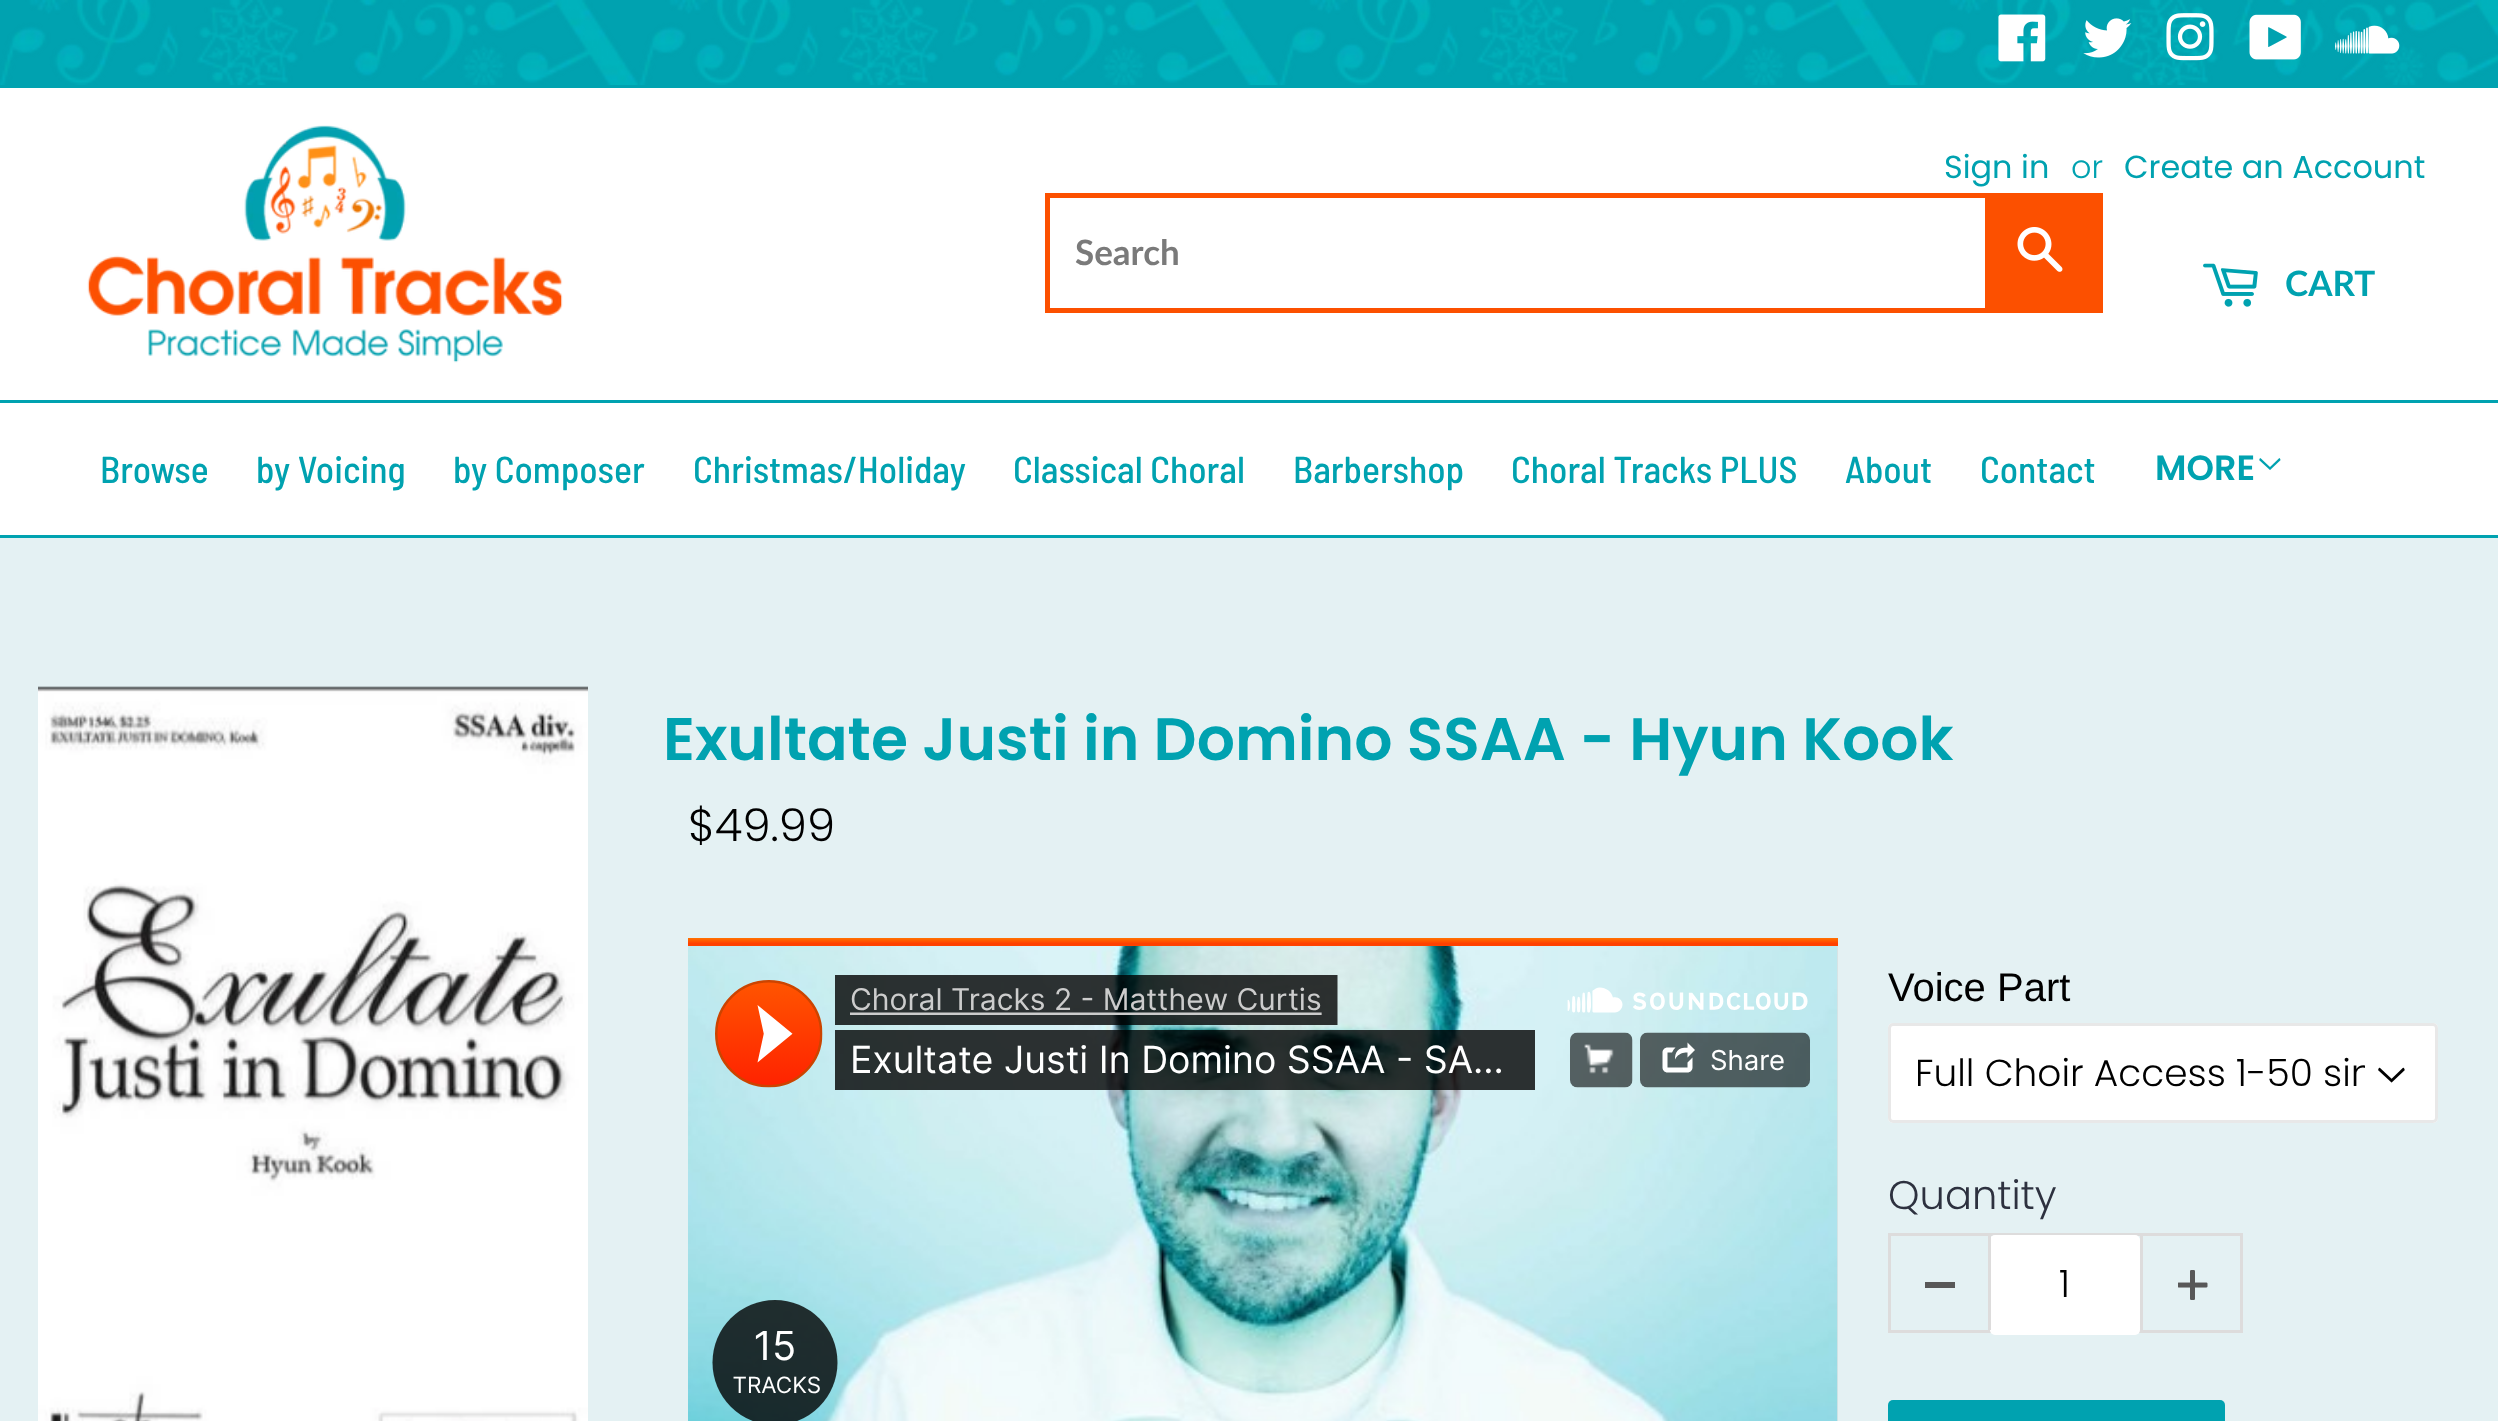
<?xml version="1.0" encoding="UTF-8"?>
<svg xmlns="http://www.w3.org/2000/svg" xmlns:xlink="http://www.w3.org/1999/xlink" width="2498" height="1421">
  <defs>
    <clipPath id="clip1"><rect x="1915" y="1045" width="450" height="55" /></clipPath>
  </defs>
  <rect width="100%" height="100%" fill="#ffffff" />
  <rect width="2498" height="88" fill="#00a2b0" />
  <image x="0" y="0" width="2498" height="85" xlink:href="image1.png" />
  <image x="1998" y="14" width="48" height="48" xlink:href="image2.png" />
  <image x="2083" y="18" width="49" height="40" xlink:href="image3.png" />
  <image x="2166" y="13" width="48" height="48" xlink:href="image4.png" />
  <image x="2249" y="14" width="52" height="46" xlink:href="image5.png" />
  <image x="2335" y="25" width="65" height="29" xlink:href="image6.png" />
  <image x="87" y="125" width="476" height="238" xlink:href="image7.png" />
  <rect x="1047.5" y="195.5" width="1053" height="115" fill="none" stroke="#fc5000" stroke-width="5" />
  <rect x="1985" y="198" width="113" height="110" fill="#fc5000" />
  <image x="2017" y="227" width="46" height="45" xlink:href="image8.png" />
  <image x="2203" y="263" width="55" height="44" xlink:href="image9.png" />
  <rect y="400" width="2498" height="3" fill="#00a2b0" />
  <rect y="535" width="2498" height="3" fill="#00a2b0" />
  <image x="2259" y="458" width="22" height="12" xlink:href="image10.png" />
  <rect y="538" width="2498" height="883" fill="#e4f1f3" />
  <image x="38" y="686" width="550" height="735" xlink:href="image11.png" />
  <image x="688" y="938" width="1150" height="483" xlink:href="image12.png" />
  <rect x="1888" y="1023" width="550" height="100" rx="5" fill="#ffffff" />
  <image x="2378" y="1067" width="27" height="16" xlink:href="image13.png" />
  <rect x="1889.5" y="1024.5" width="547" height="97" rx="3.5" fill="none" stroke="#e8e8e8" stroke-width="3" />
  <rect x="1889.5" y="1234.5" width="352" height="97" fill="none" stroke="#dddcdc" stroke-width="3" />
  <rect x="1990" y="1235" width="150" height="100" rx="5" fill="#ffffff" />
  <rect x="1988" y="1235" width="3" height="95" fill="#dddcdc" />
  <rect x="1925" y="1282" width="30" height="6" fill="#585858" />
  <rect x="2140" y="1235" width="3" height="95" fill="#dddcdc" />
  <image x="2178" y="1270" width="30" height="30" xlink:href="image14.png" />
  <rect x="1888" y="1400" width="337" height="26" rx="5" fill="#00a2b0" />
  <text x="1944" y="178" style="font-family: Poppins; font-size: 31.9px; fill: #00a2b0">Sign in</text>
  <text x="2071" y="178" style="font-family: Poppins; font-size: 31.9px; font-weight: 300; fill: #00a2b0">or</text>
  <text x="2124" y="178" style="font-family: Poppins; font-size: 31.9px; fill: #00a2b0">Create an Account</text>
  <text x="1075" y="265" style="font-family: Lato; font-size: 35px; font-weight: bold; fill: #7a7a7a">Search</text>
  <text x="2285" y="296" style="font-family: Lato; font-size: 35px; font-weight: bold; fill: #00a2b0">CART</text>
  <text x="100" y="483" style="font-family: Barlow Semi Condensed; font-size: 37.5px; font-weight: 500; fill: #00a2b0">Browse</text>
  <text x="256" y="483" style="font-family: Barlow Semi Condensed; font-size: 37.5px; font-weight: 500; fill: #00a2b0">by Voicing</text>
  <text x="453" y="483" style="font-family: Barlow Semi Condensed; font-size: 37.5px; font-weight: 500; fill: #00a2b0">by Composer</text>
  <text x="693" y="483" style="font-family: Barlow Semi Condensed; font-size: 37.5px; font-weight: 500; fill: #00a2b0">Christmas/Holiday</text>
  <text x="1013" y="483" style="font-family: Barlow Semi Condensed; font-size: 37.5px; font-weight: 500; fill: #00a2b0">Classical Choral</text>
  <text x="1293" y="483" style="font-family: Barlow Semi Condensed; font-size: 37.5px; font-weight: 500; fill: #00a2b0">Barbershop</text>
  <text x="1511" y="483" style="font-family: Barlow Semi Condensed; font-size: 37.5px; font-weight: 500; fill: #00a2b0">Choral Tracks PLUS</text>
  <text x="1845" y="483" style="font-family: Barlow Semi Condensed; font-size: 37.5px; font-weight: 500; fill: #00a2b0">About</text>
  <text x="1980" y="483" style="font-family: Barlow Semi Condensed; font-size: 37.5px; font-weight: 500; fill: #00a2b0">Contact</text>
  <text x="2155" y="480" style="font-family: Poppins; font-size: 35px; font-weight: 600; fill: #00a2b0">MORE</text>
  <text x="663" y="760" style="font-family: Poppins; font-size: 60px; font-weight: 600; fill: #00a2b0">Exultate Justi in Domino SSAA - Hyun Kook</text>
  <text x="688" y="841" style="font-family: Poppins; font-size: 45px; font-weight: 300; fill: #000000">$49.99</text>
  <text x="1888" y="1001" style="font-family: Liberation Sans; font-size: 40px; fill: #000000">Voice Part</text>
  <g clip-path="url(#clip1)">
    <text x="1915" y="1086" style="font-family: Poppins; font-size: 37.5px; font-weight: 300; fill: #000000">Full Choir Access 1-50 sin</text>
  </g>
  <text x="1888" y="1209" style="font-family: Poppins; font-size: 40px; font-weight: 300; fill: #2d313f">Quantity</text>
  <text x="2059" y="1297" style="font-family: Poppins; font-size: 37.5px; font-weight: 300; fill: #000000">1</text>
</svg>
